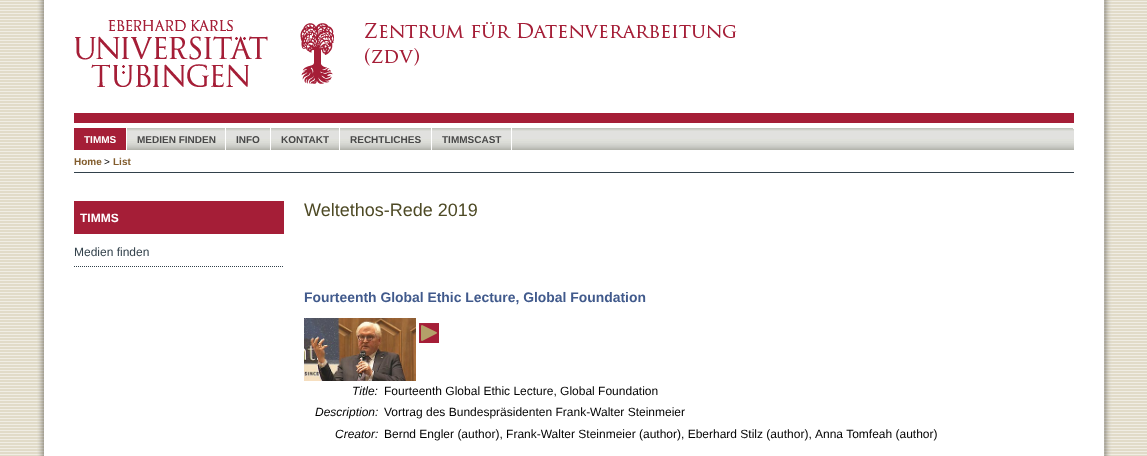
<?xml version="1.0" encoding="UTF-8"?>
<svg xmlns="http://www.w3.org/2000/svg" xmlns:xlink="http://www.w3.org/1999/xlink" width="1147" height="456">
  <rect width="100%" height="100%" fill="#ffffff" />
  <image x="0" y="0" width="1147" height="456" xlink:href="image1.png" />
  <image x="37" y="0" width="1075" height="456" xlink:href="image2.png" />
  <image x="75" y="20" width="259" height="67" xlink:href="image3.png" />
  <image x="365" y="22" width="372" height="44" xlink:href="image4.png" />
  <rect x="74" y="113" width="1000" height="10" fill="#a51e37" />
  <image x="127" y="128" width="947" height="22" xlink:href="image5.png" />
  <rect x="1073" y="128" width="1" height="1" fill="#ffffff" />
  <rect x="74" y="128" width="52" height="22" fill="#a51e37" />
  <rect x="225" y="128" width="1" height="22" fill="#ffffff" />
  <rect x="270" y="128" width="1" height="22" fill="#ffffff" />
  <rect x="339" y="128" width="1" height="22" fill="#ffffff" />
  <rect x="431" y="128" width="1" height="22" fill="#ffffff" />
  <rect x="511" y="128" width="1" height="22" fill="#ffffff" />
  <rect x="74" y="172" width="1000" height="1" fill="#32414b" />
  <rect x="74" y="201" width="210" height="33" fill="#a51e37" />
  <path d="M 74 266.5 h 210" fill="none" stroke="#32414b" stroke-dasharray="1 1" />
  <image x="304" y="318" width="112" height="63" xlink:href="image6.png" />
  <image x="419" y="323" width="20" height="20" xlink:href="image7.png" />
  <text x="84" y="143" style="font-family: Liberation Sans; font-size: 10px; font-weight: bold; fill: #ffffff">TIMMS</text>
  <text x="137" y="143" style="font-family: Liberation Sans; font-size: 10px; font-weight: bold; fill: #484848">MEDIEN FINDEN</text>
  <text x="236" y="143" style="font-family: Liberation Sans; font-size: 10px; font-weight: bold; fill: #484848">INFO</text>
  <text x="281" y="143" style="font-family: Liberation Sans; font-size: 10px; font-weight: bold; fill: #484848">KONTAKT</text>
  <text x="350" y="143" style="font-family: Liberation Sans; font-size: 10px; font-weight: bold; fill: #484848">RECHTLICHES</text>
  <text x="442" y="143" style="font-family: Liberation Sans; font-size: 10px; font-weight: bold; fill: #484848">TIMMSCAST</text>
  <text x="74" y="165" style="font-family: Liberation Sans; font-size: 10px; font-weight: bold; fill: #825d2d">Home</text>
  <text x="104" y="165" style="font-family: Liberation Sans; font-size: 10px; fill: #000000">&gt;</text>
  <text x="113" y="165" style="font-family: Liberation Sans; font-size: 10px; font-weight: bold; fill: #825d2d">List</text>
  <text x="80" y="222" style="font-family: Liberation Sans; font-size: 12px; font-weight: bold; fill: #ffffff">TIMMS</text>
  <text x="74" y="256" style="font-family: Liberation Sans; font-size: 12px; fill: #32414b">Medien finden</text>
  <text x="304" y="216" style="font-family: Liberation Sans; font-size: 18px; fill: #4e4a25">Weltethos-Rede 2019</text>
  <text x="304" y="302" style="font-family: Liberation Sans; font-size: 13.9px; font-weight: bold; fill: #415a8c">Fourteenth Global Ethic Lecture, Global Foundation</text>
  <text x="352" y="395" style="font-family: Liberation Sans; font-size: 12px; font-style: italic; fill: #000000">Title:</text>
  <text x="384" y="395" style="font-family: Liberation Sans; font-size: 12px; fill: #000000">Fourteenth Global Ethic Lecture, Global Foundation</text>
  <text x="315" y="416" style="font-family: Liberation Sans; font-size: 12px; font-style: italic; fill: #000000">Description:</text>
  <text x="384" y="416" style="font-family: Liberation Sans; font-size: 12px; fill: #000000">Vortrag des Bundespräsidenten Frank-Walter Steinmeier</text>
  <text x="335" y="438" style="font-family: Liberation Sans; font-size: 12px; font-style: italic; fill: #000000">Creator:</text>
  <text x="384" y="438" style="font-family: Liberation Sans; font-size: 12px; fill: #000000">Bernd Engler (author), Frank-Walter Steinmeier (author), Eberhard Stilz (author),</text>
  <text x="815" y="438" style="font-family: Liberation Sans; font-size: 12px; fill: #000000">Anna Tomfeah (author)</text>
</svg>
